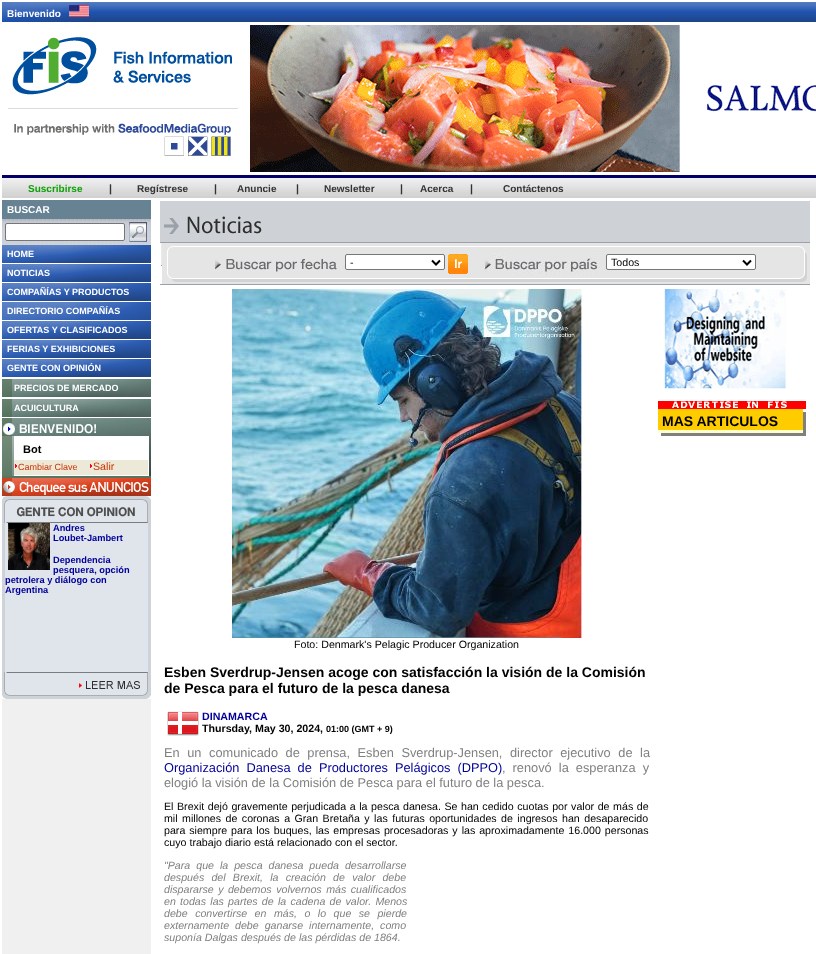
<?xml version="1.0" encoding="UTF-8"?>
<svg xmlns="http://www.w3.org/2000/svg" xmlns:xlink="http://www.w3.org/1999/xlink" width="816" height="954">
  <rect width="100%" height="100%" fill="#ffffff" />
  <image x="2" y="2" width="814" height="20" xlink:href="image1.png" />
  <image x="69" y="5" width="20" height="12" xlink:href="image2.png" />
  <image x="8" y="37" width="230" height="119" xlink:href="image3.png" />
  <image x="250" y="25" width="566" height="147" xlink:href="image4.png" />
  <rect x="2" y="175" width="814" height="3" fill="#000066" />
  <image x="2" y="178" width="106" height="20" xlink:href="image5.png" />
  <image x="108" y="178" width="5" height="20" xlink:href="image6.png" />
  <image x="113" y="178" width="100" height="20" xlink:href="image7.png" />
  <image x="213" y="178" width="5" height="20" xlink:href="image6.png" />
  <image x="218" y="178" width="77" height="20" xlink:href="image8.png" />
  <image x="295" y="178" width="6" height="20" xlink:href="image9.png" />
  <image x="301" y="178" width="98" height="20" xlink:href="image10.png" />
  <image x="399" y="178" width="5" height="20" xlink:href="image6.png" />
  <image x="404" y="178" width="65" height="20" xlink:href="image11.png" />
  <image x="469" y="178" width="6" height="20" xlink:href="image9.png" />
  <image x="475" y="178" width="117" height="20" xlink:href="image12.png" />
  <image x="592" y="178" width="224" height="20" xlink:href="image13.png" />
  <rect x="2" y="200" width="149" height="19" fill="#678393" />
  <image x="2" y="219" width="149" height="26" xlink:href="image14.png" />
  <rect x="5.5" y="223.5" width="119" height="17" rx="1.5" fill="#ffffff" stroke="#767676" />
  <image x="129" y="222" width="18" height="20" xlink:href="image15.png" />
  <image x="2" y="245" width="149" height="18" xlink:href="image16.png" />
  <image x="2" y="264" width="149" height="18" xlink:href="image16.png" />
  <image x="2" y="283" width="149" height="18" xlink:href="image16.png" />
  <image x="2" y="302" width="149" height="18" xlink:href="image17.png" />
  <image x="2" y="321" width="149" height="18" xlink:href="image16.png" />
  <image x="2" y="340" width="149" height="18" xlink:href="image16.png" />
  <image x="2" y="359" width="149" height="18" xlink:href="image16.png" />
  <image x="2" y="379" width="149" height="18" xlink:href="image18.png" />
  <image x="2" y="399" width="149" height="18" xlink:href="image18.png" />
  <image x="2" y="418" width="149" height="18" xlink:href="image19.png" />
  <image x="2" y="436" width="12" height="40" xlink:href="image20.png" />
  <rect x="14" y="460" width="134" height="15" fill="#ece9d8" />
  <image x="15" y="464" width="2" height="4" xlink:href="image21.png" />
  <image x="90" y="464" width="2" height="4" xlink:href="image21.png" />
  <image x="149" y="436" width="2" height="40" xlink:href="image22.png" />
  <rect x="2" y="476" width="149" height="2" fill="#58755f" />
  <image x="2" y="478" width="149" height="18" xlink:href="image23.png" />
  <image x="2" y="496" width="149" height="27" xlink:href="image24.png" />
  <rect x="2" y="523" width="3" height="149" fill="#ced3da" />
  <rect x="5" y="523" width="143" height="149" fill="#e0e5ec" />
  <image x="8" y="523" width="42" height="47" xlink:href="image25.png" />
  <rect x="148" y="523" width="3" height="149" fill="#ced3da" />
  <image x="2" y="672" width="149" height="27" xlink:href="image26.png" />
  <rect x="2" y="699" width="149" height="255" fill="#f0f0f0" />
  <rect x="160" y="201" width="650" height="41" fill="#ced2d7" />
  <rect x="160" y="242" width="650" height="1" fill="#9aa1a9" />
  <image x="164" y="216" width="98" height="18" xlink:href="image27.png" />
  <image x="161" y="243" width="649" height="41" xlink:href="image28.png" />
  <image x="215" y="259" width="122" height="13" xlink:href="image29.png" />
  <rect x="345.5" y="254.5" width="99" height="15" rx="1.5" fill="#ffffff" stroke="#767676" />
  <path d="M 432 260.5 l 4 4 l 4 -4" fill="none" stroke="#000000" stroke-width="2" />
  <image x="448" y="254" width="20" height="20" xlink:href="image30.png" />
  <image x="483" y="253" width="120" height="22" xlink:href="image31.png" />
  <rect x="606.5" y="254.5" width="149" height="15" rx="1.5" fill="#ffffff" stroke="#767676" />
  <path d="M 743 260.5 l 4 4 l 4 -4" fill="none" stroke="#000000" stroke-width="2" />
  <rect x="160" y="284" width="650" height="1" fill="#9aa1a9" />
  <image x="664" y="289" width="122" height="100" xlink:href="image32.png" />
  <image x="658" y="401" width="148" height="8" xlink:href="image33.png" />
  <rect x="658" y="409" width="145" height="3" fill="#ffcc00" />
  <rect x="658" y="412" width="3" height="18" fill="#ffcc00" />
  <rect x="661" y="412" width="142" height="18" fill="#ffcc00" />
  <rect x="803" y="412" width="3" height="21" fill="#808080" />
  <rect x="658" y="430" width="145" height="3" fill="#ffffcc" />
  <rect x="661" y="433" width="145" height="3" fill="#808080" />
  <image x="232" y="289" width="350" height="349" xlink:href="image34.png" />
  <image x="167" y="711" width="32" height="25" xlink:href="image35.png" />
  <text x="7" y="17" style="font-family: Liberation Sans; font-size: 10px; font-weight: bold; fill: #ffffff">Bienvenido</text>
  <text x="28" y="192" style="font-family: Liberation Sans; font-size: 10px; font-weight: bold; fill: #0ea106">Suscribirse</text>
  <text x="109" y="192" style="font-family: Liberation Sans; font-size: 10.65px; font-weight: bold; fill: #333333">|</text>
  <text x="137" y="192" style="font-family: Liberation Sans; font-size: 10px; font-weight: bold; fill: #333333">Regístrese</text>
  <text x="214" y="192" style="font-family: Liberation Sans; font-size: 10.65px; font-weight: bold; fill: #333333">|</text>
  <text x="237" y="192" style="font-family: Liberation Sans; font-size: 10px; font-weight: bold; fill: #333333">Anuncie</text>
  <text x="296" y="192" style="font-family: Liberation Sans; font-size: 10.65px; font-weight: bold; fill: #333333">|</text>
  <text x="324" y="192" style="font-family: Liberation Sans; font-size: 10px; font-weight: bold; fill: #333333">Newsletter</text>
  <text x="400" y="192" style="font-family: Liberation Sans; font-size: 10.65px; font-weight: bold; fill: #333333">|</text>
  <text x="420" y="192" style="font-family: Liberation Sans; font-size: 10px; font-weight: bold; fill: #333333">Acerca</text>
  <text x="470" y="192" style="font-family: Liberation Sans; font-size: 10.65px; font-weight: bold; fill: #333333">|</text>
  <text x="503" y="192" style="font-family: Liberation Sans; font-size: 10px; font-weight: bold; fill: #333333">Contáctenos</text>
  <text x="7" y="213" style="font-family: Liberation Sans; font-size: 10px; font-weight: bold; fill: #ffffff">BUSCAR</text>
  <text x="7" y="257" style="font-family: Liberation Sans; font-size: 9px; font-weight: bold; fill: #ffffff">HOME</text>
  <text x="7" y="276" style="font-family: Liberation Sans; font-size: 9px; font-weight: bold; fill: #ffffff">NOTICIAS</text>
  <text x="7" y="295" style="font-family: Liberation Sans; font-size: 9px; font-weight: bold; fill: #ffffff">COMPAÑÍAS Y PRODUCTOS</text>
  <text x="7" y="314" style="font-family: Liberation Sans; font-size: 9px; font-weight: bold; fill: #ffffff">DIRECTORIO COMPAÑÍAS</text>
  <text x="7" y="333" style="font-family: Liberation Sans; font-size: 9px; font-weight: bold; fill: #ffffff">OFERTAS Y CLASIFICADOS</text>
  <text x="7" y="352" style="font-family: Liberation Sans; font-size: 9px; font-weight: bold; fill: #ffffff">FERIAS Y EXHIBICIONES</text>
  <text x="7" y="371" style="font-family: Liberation Sans; font-size: 9px; font-weight: bold; fill: #ffffff">GENTE CON OPINIÓN</text>
  <text x="14" y="391" style="font-family: Liberation Sans; font-size: 9px; font-weight: bold; fill: #ffffff">PRECIOS DE MERCADO</text>
  <text x="14" y="411" style="font-family: Liberation Sans; font-size: 9px; font-weight: bold; fill: #ffffff">ACUICULTURA</text>
  <text x="23" y="453" style="font-family: Liberation Sans; font-size: 11px; font-weight: bold; fill: #000000">Bot</text>
  <text x="18" y="470" style="font-family: Liberation Sans; font-size: 9px; fill: #cc3300">Cambiar Clave</text>
  <text x="93" y="470" style="font-family: Liberation Sans; font-size: 10.65px; fill: #cc3300">Salir</text>
  <text x="53" y="531" style="font-family: Liberation Sans; font-size: 9.25px; font-weight: bold; fill: #000099">Andres</text>
  <text x="53" y="541" style="font-family: Liberation Sans; font-size: 9.25px; font-weight: bold; fill: #000099">Loubet-Jambert</text>
  <text x="53" y="563" style="font-family: Liberation Sans; font-size: 9.25px; font-weight: bold; fill: #000099">Dependencia</text>
  <text x="53" y="573" style="font-family: Liberation Sans; font-size: 9.25px; font-weight: bold; fill: #000099">pesquera, opción</text>
  <text x="5" y="583" style="font-family: Liberation Sans; font-size: 9.25px; font-weight: bold; fill: #000099">petrolera y diálogo con</text>
  <text x="5" y="593" style="font-family: Liberation Sans; font-size: 9.25px; font-weight: bold; fill: #000099">Argentina</text>
  <text x="350" y="266" style="font-family: Liberation Sans; font-size: 10.65px; fill: #000000">-</text>
  <text x="611" y="266" style="font-family: Liberation Sans; font-size: 10.65px; fill: #000000">Todos</text>
  <text x="662" y="426" style="font-family: Liberation Sans; font-size: 14px; font-weight: bold; fill: #000000">MAS ARTICULOS</text>
  <text x="294" y="648" style="font-family: Liberation Sans; font-size: 10.65px; fill: #000000">Foto: Denmark's Pelagic Producer Organization</text>
  <text x="164" y="677" style="font-family: Liberation Sans; font-size: 14px; font-weight: bold; fill: #000000">Esben Sverdrup-Jensen acoge con satisfacción la visión de la Comisión</text>
  <text x="164" y="693" style="font-family: Liberation Sans; font-size: 14px; font-weight: bold; fill: #000000">de Pesca para el futuro de la pesca danesa</text>
  <text x="202" y="720" style="font-family: Liberation Sans; font-size: 10.65px; font-weight: bold; fill: #000099">DINAMARCA</text>
  <text x="202" y="732" style="font-family: Liberation Sans; font-size: 10.65px; font-weight: bold; fill: #000000">Thursday, May 30, 2024,</text>
  <text x="326" y="732" style="font-family: Liberation Sans; font-size: 9px; font-weight: bold; fill: #000000">01:00 (GMT + 9)</text>
  <text x="164" y="757" word-spacing="4" style="font-family: Liberation Sans; font-size: 12.8px; fill: #808080">En un comunicado de prensa, Esben Sverdrup-Jensen, director ejecutivo de la</text>
  <text x="164" y="772" word-spacing="3.5" style="font-family: Liberation Sans; font-size: 12.8px; fill: #000099">Organización Danesa de Productores Pelágicos (DPPO)</text>
  <text x="502" y="772" word-spacing="3.5" style="font-family: Liberation Sans; font-size: 12.8px; fill: #808080">, renovó la esperanza y</text>
  <text x="164" y="787" style="font-family: Liberation Sans; font-size: 12.8px; fill: #808080">elogió la visión de la Comisión de Pesca para el futuro de la pesca.</text>
  <text x="164" y="810" word-spacing="0.6" style="font-family: Liberation Sans; font-size: 10.65px; fill: #000000">El Brexit dejó gravemente perjudicada a la pesca danesa. Se han cedido cuotas por valor de más de</text>
  <text x="164" y="822" word-spacing="1.5" style="font-family: Liberation Sans; font-size: 10.65px; fill: #000000">mil millones de coronas a Gran Bretaña y las futuras oportunidades de ingresos han desaparecido</text>
  <text x="164" y="834" word-spacing="1" style="font-family: Liberation Sans; font-size: 10.65px; fill: #000000">para siempre para los buques, las empresas procesadoras y las aproximadamente 16.000 personas</text>
  <text x="164" y="846" style="font-family: Liberation Sans; font-size: 10.65px; fill: #000000">cuyo trabajo diario está relacionado con el sector.</text>
  <text x="164" y="869" word-spacing="3" style="font-family: Liberation Sans; font-size: 10.65px; font-style: italic; fill: #808080">"Para que la pesca danesa pueda desarrollarse</text>
  <text x="164" y="881" word-spacing="4.25" style="font-family: Liberation Sans; font-size: 10.65px; font-style: italic; fill: #808080">después del Brexit, la creación de valor debe</text>
  <text x="164" y="893" word-spacing="1.5" style="font-family: Liberation Sans; font-size: 10.65px; font-style: italic; fill: #808080">dispararse y debemos volvernos más cualificados</text>
  <text x="164" y="905" word-spacing="1.25" style="font-family: Liberation Sans; font-size: 10.65px; font-style: italic; fill: #808080">en todas las partes de la cadena de valor. Menos</text>
  <text x="164" y="917" word-spacing="4.5" style="font-family: Liberation Sans; font-size: 10.65px; font-style: italic; fill: #808080">debe convertirse en más, o lo que se pierde</text>
  <text x="164" y="929" word-spacing="3" style="font-family: Liberation Sans; font-size: 10.65px; font-style: italic; fill: #808080">externamente debe ganarse internamente, como</text>
  <text x="164" y="941" style="font-family: Liberation Sans; font-size: 10.65px; font-style: italic; fill: #808080">suponía Dalgas después de las pérdidas de 1864.</text>
</svg>
